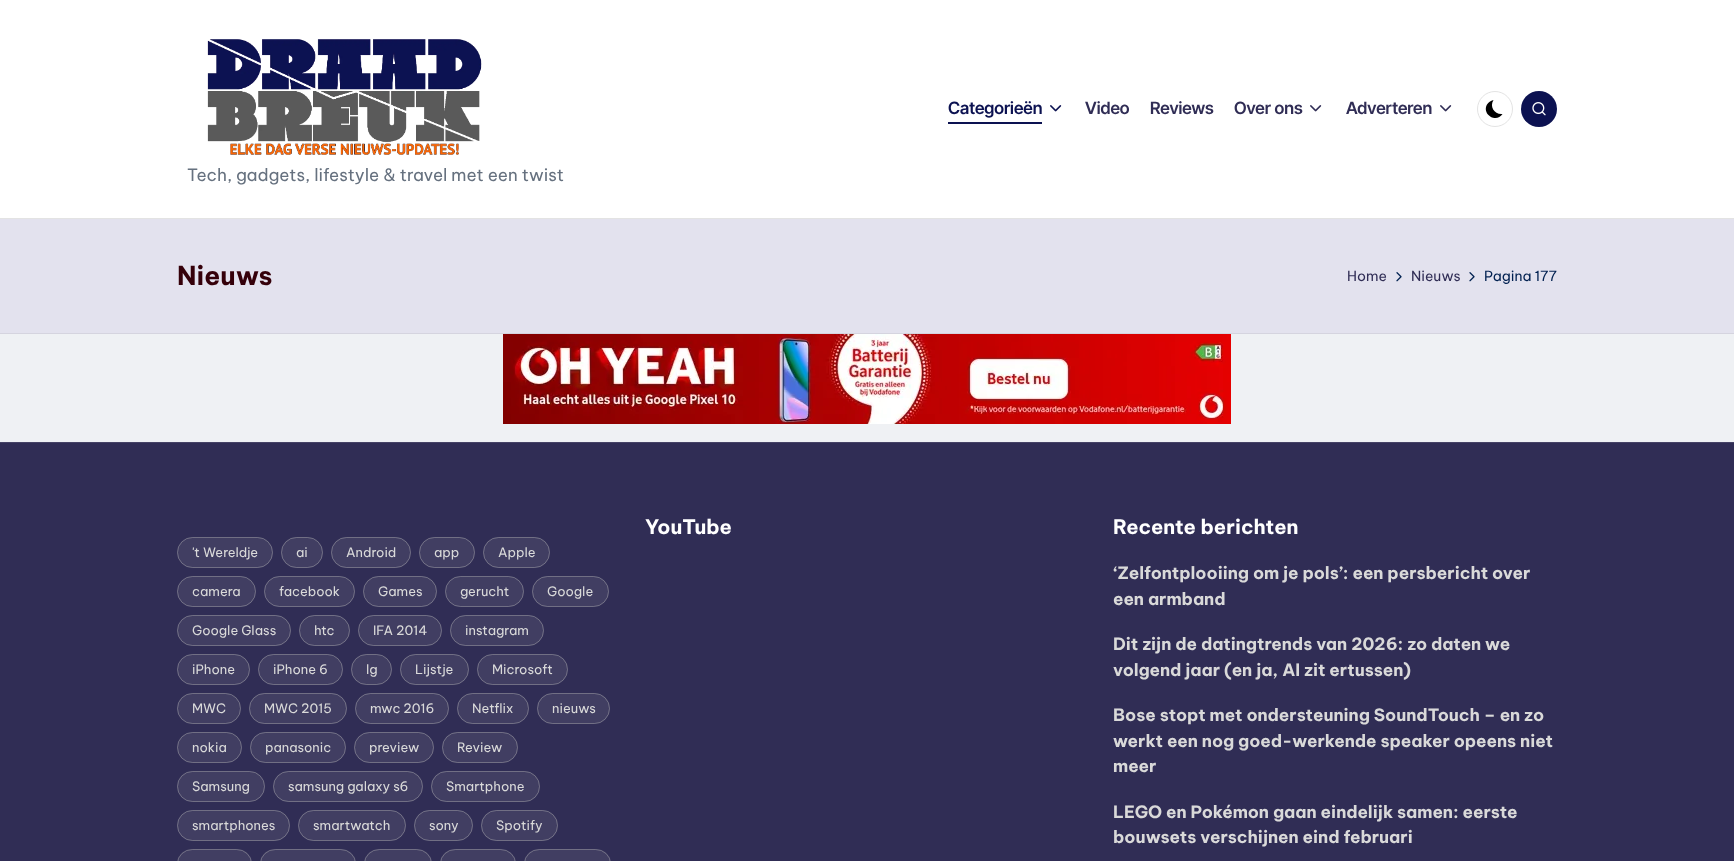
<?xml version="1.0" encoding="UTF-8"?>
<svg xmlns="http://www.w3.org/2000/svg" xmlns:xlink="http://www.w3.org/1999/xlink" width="1734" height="861">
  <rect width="100%" height="100%" fill="#eff1f4" />
  <rect width="1734" height="218" fill="#ffffff" />
  <rect y="218" width="1734" height="1" fill="#e3e3e3" />
  <rect x="948" y="122" width="94" height="2" fill="#0c1251" />
  <image x="1050" y="105" width="12" height="7" xlink:href="image1.png" />
  <image x="1310" y="105" width="12" height="7" xlink:href="image2.png" />
  <image x="1440" y="105" width="12" height="7" xlink:href="image2.png" />
  <circle cx="1495" cy="109" r="17.5" fill="none" stroke="#e3e3e3" />
  <path d="M 1502.5 114 c -7.5 1 -13.5 -7 -9 -14 c -3 0.5 -5 2.5 -6.5 4.5 c -5.5 10 9.5 19 15.5 9.5 z" fill="#000000" />
  <circle cx="1539" cy="109" r="18" fill="#0c1251" />
  <image x="1532" y="102" width="14" height="14" xlink:href="image3.png" />
  <image x="207" y="39" width="275" height="116" xlink:href="image4.png" />
  <rect y="219" width="1734" height="114" fill="#e3e2ee" />
  <rect y="333" width="1734" height="1" fill="#d5d4df" />
  <image x="1396" y="272" width="6" height="10" xlink:href="image5.png" />
  <image x="1469" y="272" width="6" height="10" xlink:href="image5.png" />
  <image x="503" y="334" width="728" height="90" xlink:href="image6.png" />
  <rect y="443" width="1734" height="418" fill="#302d55" />
  <rect y="442" width="1734" height="1" fill="#454266" />
  <rect x="177" y="537" width="96" height="31" rx="15.5" fill="#413e62" />
  <rect x="177.5" y="537.5" width="95" height="30" rx="15" fill="none" stroke="#b9b9b9" stroke-opacity="0.4" />
  <rect x="281" y="537" width="42" height="31" rx="15.5" fill="#413e62" />
  <rect x="281.5" y="537.5" width="41" height="30" rx="15" fill="none" stroke="#b9b9b9" stroke-opacity="0.4" />
  <rect x="331" y="537" width="80" height="31" rx="15.5" fill="#413e62" />
  <rect x="331.5" y="537.5" width="79" height="30" rx="15" fill="none" stroke="#b9b9b9" stroke-opacity="0.4" />
  <rect x="419" y="537" width="56" height="31" rx="15.5" fill="#413e62" />
  <rect x="419.5" y="537.5" width="55" height="30" rx="15" fill="none" stroke="#b9b9b9" stroke-opacity="0.4" />
  <rect x="483" y="537" width="67" height="31" rx="15.5" fill="#413e62" />
  <rect x="483.5" y="537.5" width="66" height="30" rx="15" fill="none" stroke="#b9b9b9" stroke-opacity="0.4" />
  <rect x="177" y="576" width="79" height="31" rx="15.5" fill="#413e62" />
  <rect x="177.5" y="576.5" width="78" height="30" rx="15" fill="none" stroke="#b9b9b9" stroke-opacity="0.4" />
  <rect x="264" y="576" width="91" height="31" rx="15.5" fill="#413e62" />
  <rect x="264.5" y="576.5" width="90" height="30" rx="15" fill="none" stroke="#b9b9b9" stroke-opacity="0.4" />
  <rect x="363" y="576" width="74" height="31" rx="15.5" fill="#413e62" />
  <rect x="363.5" y="576.5" width="73" height="30" rx="15" fill="none" stroke="#b9b9b9" stroke-opacity="0.4" />
  <rect x="445" y="576" width="79" height="31" rx="15.5" fill="#413e62" />
  <rect x="445.5" y="576.5" width="78" height="30" rx="15" fill="none" stroke="#b9b9b9" stroke-opacity="0.4" />
  <rect x="532" y="576" width="77" height="31" rx="15.5" fill="#413e62" />
  <rect x="532.5" y="576.5" width="76" height="30" rx="15" fill="none" stroke="#b9b9b9" stroke-opacity="0.4" />
  <rect x="177" y="615" width="114" height="31" rx="15.5" fill="#413e62" />
  <rect x="177.5" y="615.5" width="113" height="30" rx="15" fill="none" stroke="#b9b9b9" stroke-opacity="0.4" />
  <rect x="299" y="615" width="51" height="31" rx="15.5" fill="#413e62" />
  <rect x="299.5" y="615.5" width="50" height="30" rx="15" fill="none" stroke="#b9b9b9" stroke-opacity="0.4" />
  <rect x="358" y="615" width="84" height="31" rx="15.5" fill="#413e62" />
  <rect x="358.5" y="615.5" width="83" height="30" rx="15" fill="none" stroke="#b9b9b9" stroke-opacity="0.4" />
  <rect x="450" y="615" width="94" height="31" rx="15.5" fill="#413e62" />
  <rect x="450.5" y="615.5" width="93" height="30" rx="15" fill="none" stroke="#b9b9b9" stroke-opacity="0.4" />
  <rect x="177" y="654" width="73" height="31" rx="15.5" fill="#413e62" />
  <rect x="177.5" y="654.5" width="72" height="30" rx="15" fill="none" stroke="#b9b9b9" stroke-opacity="0.4" />
  <rect x="258" y="654" width="85" height="31" rx="15.5" fill="#413e62" />
  <rect x="258.5" y="654.5" width="84" height="30" rx="15" fill="none" stroke="#b9b9b9" stroke-opacity="0.4" />
  <rect x="351" y="654" width="41" height="31" rx="15.5" fill="#413e62" />
  <rect x="351.5" y="654.5" width="40" height="30" rx="15" fill="none" stroke="#b9b9b9" stroke-opacity="0.4" />
  <rect x="400" y="654" width="69" height="31" rx="15.5" fill="#413e62" />
  <rect x="400.5" y="654.5" width="68" height="30" rx="15" fill="none" stroke="#b9b9b9" stroke-opacity="0.4" />
  <rect x="477" y="654" width="91" height="31" rx="15.5" fill="#413e62" />
  <rect x="477.5" y="654.5" width="90" height="30" rx="15" fill="none" stroke="#b9b9b9" stroke-opacity="0.4" />
  <rect x="177" y="693" width="64" height="31" rx="15.5" fill="#413e62" />
  <rect x="177.5" y="693.5" width="63" height="30" rx="15" fill="none" stroke="#b9b9b9" stroke-opacity="0.4" />
  <rect x="249" y="693" width="98" height="31" rx="15.5" fill="#413e62" />
  <rect x="249.5" y="693.5" width="97" height="30" rx="15" fill="none" stroke="#b9b9b9" stroke-opacity="0.4" />
  <rect x="355" y="693" width="94" height="31" rx="15.5" fill="#413e62" />
  <rect x="355.5" y="693.5" width="93" height="30" rx="15" fill="none" stroke="#b9b9b9" stroke-opacity="0.4" />
  <rect x="457" y="693" width="72" height="31" rx="15.5" fill="#413e62" />
  <rect x="457.5" y="693.5" width="71" height="30" rx="15" fill="none" stroke="#b9b9b9" stroke-opacity="0.4" />
  <rect x="537" y="693" width="73" height="31" rx="15.5" fill="#413e62" />
  <rect x="537.5" y="693.5" width="72" height="30" rx="15" fill="none" stroke="#b9b9b9" stroke-opacity="0.4" />
  <rect x="177" y="732" width="65" height="31" rx="15.5" fill="#413e62" />
  <rect x="177.5" y="732.5" width="64" height="30" rx="15" fill="none" stroke="#b9b9b9" stroke-opacity="0.4" />
  <rect x="250" y="732" width="96" height="31" rx="15.5" fill="#413e62" />
  <rect x="250.5" y="732.5" width="95" height="30" rx="15" fill="none" stroke="#b9b9b9" stroke-opacity="0.4" />
  <rect x="354" y="732" width="80" height="31" rx="15.5" fill="#413e62" />
  <rect x="354.5" y="732.5" width="79" height="30" rx="15" fill="none" stroke="#b9b9b9" stroke-opacity="0.4" />
  <rect x="442" y="732" width="76" height="31" rx="15.5" fill="#413e62" />
  <rect x="442.5" y="732.5" width="75" height="30" rx="15" fill="none" stroke="#b9b9b9" stroke-opacity="0.4" />
  <rect x="177" y="771" width="88" height="31" rx="15.5" fill="#413e62" />
  <rect x="177.5" y="771.5" width="87" height="30" rx="15" fill="none" stroke="#b9b9b9" stroke-opacity="0.4" />
  <rect x="273" y="771" width="150" height="31" rx="15.5" fill="#413e62" />
  <rect x="273.5" y="771.5" width="149" height="30" rx="15" fill="none" stroke="#b9b9b9" stroke-opacity="0.4" />
  <rect x="431" y="771" width="109" height="31" rx="15.5" fill="#413e62" />
  <rect x="431.5" y="771.5" width="108" height="30" rx="15" fill="none" stroke="#b9b9b9" stroke-opacity="0.4" />
  <rect x="177" y="810" width="113" height="31" rx="15.5" fill="#413e62" />
  <rect x="177.5" y="810.5" width="112" height="30" rx="15" fill="none" stroke="#b9b9b9" stroke-opacity="0.4" />
  <rect x="298" y="810" width="108" height="31" rx="15.5" fill="#413e62" />
  <rect x="298.5" y="810.5" width="107" height="30" rx="15" fill="none" stroke="#b9b9b9" stroke-opacity="0.4" />
  <rect x="414" y="810" width="59" height="31" rx="15.5" fill="#413e62" />
  <rect x="414.5" y="810.5" width="58" height="30" rx="15" fill="none" stroke="#b9b9b9" stroke-opacity="0.4" />
  <rect x="481" y="810" width="77" height="31" rx="15.5" fill="#413e62" />
  <rect x="481.5" y="810.5" width="76" height="30" rx="15" fill="none" stroke="#b9b9b9" stroke-opacity="0.4" />
  <rect x="177" y="849" width="75" height="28" rx="15.5" fill="#413e62" />
  <rect x="177.5" y="849.5" width="74" height="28" rx="15" fill="none" stroke="#b9b9b9" stroke-opacity="0.4" />
  <rect x="260" y="849" width="96" height="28" rx="15.5" fill="#413e62" />
  <rect x="260.5" y="849.5" width="95" height="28" rx="15" fill="none" stroke="#b9b9b9" stroke-opacity="0.4" />
  <rect x="364" y="849" width="68" height="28" rx="15.5" fill="#413e62" />
  <rect x="364.5" y="849.5" width="67" height="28" rx="15" fill="none" stroke="#b9b9b9" stroke-opacity="0.4" />
  <rect x="440" y="849" width="76" height="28" rx="15.5" fill="#413e62" />
  <rect x="440.5" y="849.5" width="75" height="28" rx="15" fill="none" stroke="#b9b9b9" stroke-opacity="0.4" />
  <rect x="524" y="849" width="87" height="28" rx="15.5" fill="#413e62" />
  <rect x="524.5" y="849.5" width="86" height="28" rx="15" fill="none" stroke="#b9b9b9" stroke-opacity="0.4" />
  <text x="948" y="114" style="font-family: Inter Tight; font-size: 17px; font-weight: 600; fill: #0c1251">Categorieën</text>
  <text x="1085" y="114" style="font-family: Inter Tight; font-size: 17px; font-weight: 600; fill: #302d55">Video</text>
  <text x="1150" y="114" style="font-family: Inter Tight; font-size: 17px; font-weight: 600; fill: #302d55">Reviews</text>
  <text x="1234" y="114" style="font-family: Inter Tight; font-size: 17px; font-weight: 600; fill: #302d55">Over ons</text>
  <text x="1346" y="114" style="font-family: Inter Tight; font-size: 17px; font-weight: 600; fill: #302d55">Adverteren</text>
  <text x="187" y="181" style="font-family: Be Vietnam Pro; font-size: 17px; fill: #66717f">Tech, gadgets, lifestyle &amp; travel met een twist</text>
  <text x="177" y="285" style="font-family: Be Vietnam Pro; font-size: 26px; font-weight: bold; fill: #35000a">Nieuws</text>
  <text x="1347" y="281" style="font-family: Be Vietnam Pro; font-size: 14px; fill: #302d55">Home</text>
  <text x="1411" y="281" style="font-family: Be Vietnam Pro; font-size: 14px; fill: #302d55">Nieuws</text>
  <text x="1484" y="281" style="font-family: Be Vietnam Pro; font-size: 14px; fill: #002050">Pagina 177</text>
  <text x="192" y="557" style="font-family: Be Vietnam Pro; font-size: 13px; fill: #d9d9d9">'t Wereldje</text>
  <text x="296" y="557" style="font-family: Be Vietnam Pro; font-size: 13px; fill: #d9d9d9">ai</text>
  <text x="346" y="557" style="font-family: Be Vietnam Pro; font-size: 13px; fill: #d9d9d9">Android</text>
  <text x="434" y="557" style="font-family: Be Vietnam Pro; font-size: 13px; fill: #d9d9d9">app</text>
  <text x="498" y="557" style="font-family: Be Vietnam Pro; font-size: 13px; fill: #d9d9d9">Apple</text>
  <text x="192" y="596" style="font-family: Be Vietnam Pro; font-size: 13px; fill: #d9d9d9">camera</text>
  <text x="279" y="596" style="font-family: Be Vietnam Pro; font-size: 13px; fill: #d9d9d9">facebook</text>
  <text x="378" y="596" style="font-family: Be Vietnam Pro; font-size: 13px; fill: #d9d9d9">Games</text>
  <text x="460" y="596" style="font-family: Be Vietnam Pro; font-size: 13px; fill: #d9d9d9">gerucht</text>
  <text x="547" y="596" style="font-family: Be Vietnam Pro; font-size: 13px; fill: #d9d9d9">Google</text>
  <text x="192" y="635" style="font-family: Be Vietnam Pro; font-size: 13px; fill: #d9d9d9">Google Glass</text>
  <text x="314" y="635" style="font-family: Be Vietnam Pro; font-size: 13px; fill: #d9d9d9">htc</text>
  <text x="373" y="635" style="font-family: Be Vietnam Pro; font-size: 13px; fill: #d9d9d9">IFA 2014</text>
  <text x="465" y="635" style="font-family: Be Vietnam Pro; font-size: 13px; fill: #d9d9d9">instagram</text>
  <text x="192" y="674" style="font-family: Be Vietnam Pro; font-size: 13px; fill: #d9d9d9">iPhone</text>
  <text x="273" y="674" style="font-family: Be Vietnam Pro; font-size: 13px; fill: #d9d9d9">iPhone 6</text>
  <text x="366" y="674" style="font-family: Be Vietnam Pro; font-size: 13px; fill: #d9d9d9">lg</text>
  <text x="415" y="674" style="font-family: Be Vietnam Pro; font-size: 13px; fill: #d9d9d9">Lijstje</text>
  <text x="492" y="674" style="font-family: Be Vietnam Pro; font-size: 13px; fill: #d9d9d9">Microsoft</text>
  <text x="192" y="713" style="font-family: Be Vietnam Pro; font-size: 13px; fill: #d9d9d9">MWC</text>
  <text x="264" y="713" style="font-family: Be Vietnam Pro; font-size: 13px; fill: #d9d9d9">MWC 2015</text>
  <text x="370" y="713" style="font-family: Be Vietnam Pro; font-size: 13px; fill: #d9d9d9">mwc 2016</text>
  <text x="472" y="713" style="font-family: Be Vietnam Pro; font-size: 13px; fill: #d9d9d9">Netflix</text>
  <text x="552" y="713" style="font-family: Be Vietnam Pro; font-size: 13px; fill: #d9d9d9">nieuws</text>
  <text x="192" y="752" style="font-family: Be Vietnam Pro; font-size: 13px; fill: #d9d9d9">nokia</text>
  <text x="265" y="752" style="font-family: Be Vietnam Pro; font-size: 13px; fill: #d9d9d9">panasonic</text>
  <text x="369" y="752" style="font-family: Be Vietnam Pro; font-size: 13px; fill: #d9d9d9">preview</text>
  <text x="457" y="752" style="font-family: Be Vietnam Pro; font-size: 13px; fill: #d9d9d9">Review</text>
  <text x="192" y="791" style="font-family: Be Vietnam Pro; font-size: 13px; fill: #d9d9d9">Samsung</text>
  <text x="288" y="791" style="font-family: Be Vietnam Pro; font-size: 13px; fill: #d9d9d9">samsung galaxy s6</text>
  <text x="446" y="791" style="font-family: Be Vietnam Pro; font-size: 13px; fill: #d9d9d9">Smartphone</text>
  <text x="192" y="830" style="font-family: Be Vietnam Pro; font-size: 13px; fill: #d9d9d9">smartphones</text>
  <text x="313" y="830" style="font-family: Be Vietnam Pro; font-size: 13px; fill: #d9d9d9">smartwatch</text>
  <text x="429" y="830" style="font-family: Be Vietnam Pro; font-size: 13px; fill: #d9d9d9">sony</text>
  <text x="496" y="830" style="font-family: Be Vietnam Pro; font-size: 13px; fill: #d9d9d9">Spotify</text>
  <text x="645" y="534" style="font-family: Be Vietnam Pro; font-size: 20px; font-weight: bold; fill: #ffffff">YouTube</text>
  <text x="1113" y="534" style="font-family: Be Vietnam Pro; font-size: 20px; font-weight: bold; fill: #ffffff">Recente berichten</text>
  <text x="1113" y="579" style="font-family: Be Vietnam Pro; font-size: 17px; font-weight: bold; fill: #d9d9d9">‘Zelfontplooiing om je pols’: een persbericht over</text>
  <text x="1113" y="605" style="font-family: Be Vietnam Pro; font-size: 17px; font-weight: bold; fill: #d9d9d9">een armband</text>
  <text x="1113" y="650" style="font-family: Be Vietnam Pro; font-size: 17px; font-weight: bold; fill: #d9d9d9">Dit zijn de datingtrends van 2026: zo daten we</text>
  <text x="1113" y="676" style="font-family: Be Vietnam Pro; font-size: 17px; font-weight: bold; fill: #d9d9d9">volgend jaar (en ja, AI zit ertussen)</text>
  <text x="1113" y="721" style="font-family: Be Vietnam Pro; font-size: 17px; font-weight: bold; fill: #d9d9d9">Bose stopt met ondersteuning SoundTouch – en zo</text>
  <text x="1113" y="747" style="font-family: Be Vietnam Pro; font-size: 17px; font-weight: bold; fill: #d9d9d9">werkt een nog goed-werkende speaker opeens niet</text>
  <text x="1113" y="772" style="font-family: Be Vietnam Pro; font-size: 17px; font-weight: bold; fill: #d9d9d9">meer</text>
  <text x="1113" y="818" style="font-family: Be Vietnam Pro; font-size: 17px; font-weight: bold; fill: #d9d9d9">LEGO en Pokémon gaan eindelijk samen: eerste</text>
  <text x="1113" y="843" style="font-family: Be Vietnam Pro; font-size: 17px; font-weight: bold; fill: #d9d9d9">bouwsets verschijnen eind februari</text>
</svg>
